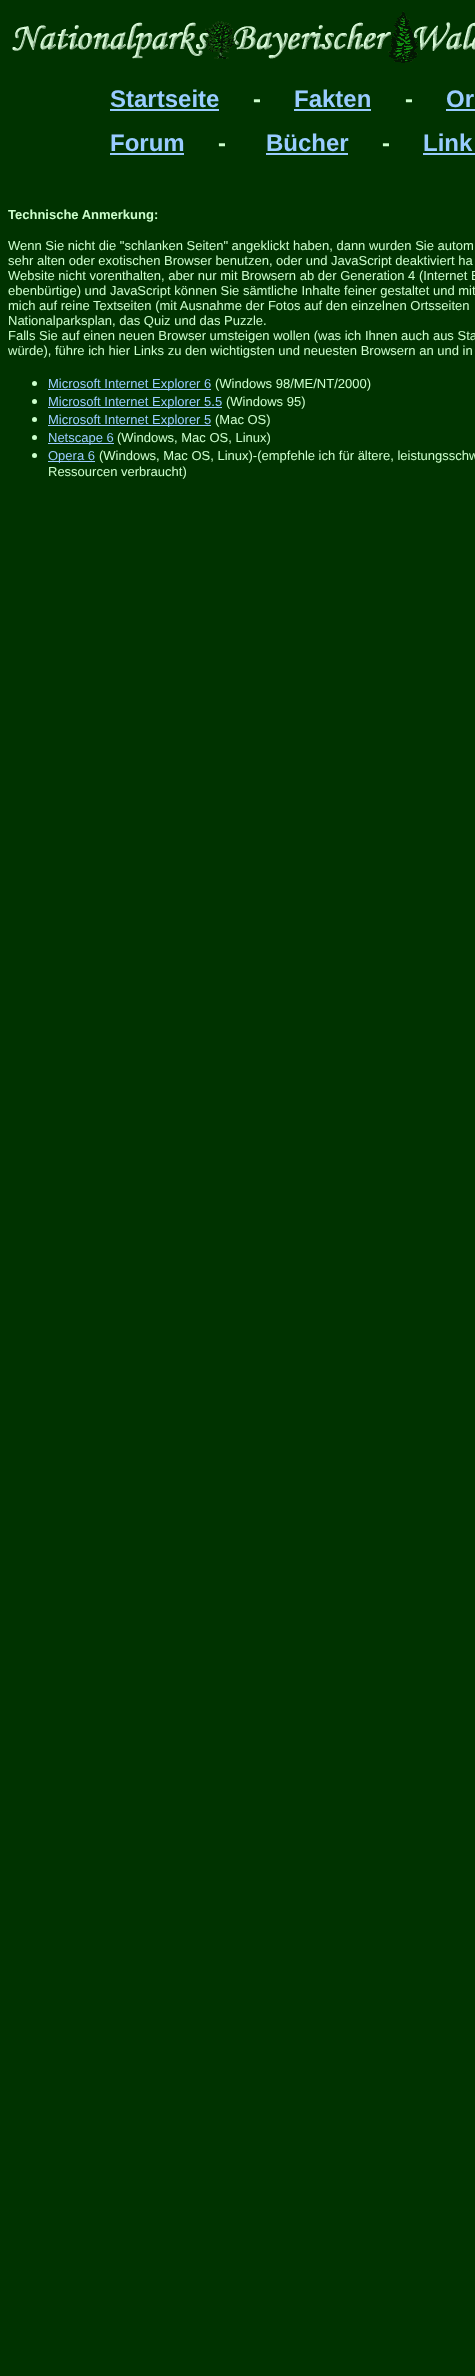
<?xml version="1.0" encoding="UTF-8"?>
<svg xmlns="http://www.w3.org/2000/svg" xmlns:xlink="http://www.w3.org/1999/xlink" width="475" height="2376">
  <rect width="100%" height="100%" fill="#003300" />
  <image x="12" y="11" width="463" height="52" xlink:href="image1.png" />
  <rect x="110" y="109" width="109" height="2" fill="#99ccff" />
  <rect x="294" y="109" width="77" height="2" fill="#99ccff" />
  <rect x="446" y="109" width="29" height="2" fill="#99ccff" />
  <rect x="110" y="153" width="74" height="2" fill="#99ccff" />
  <rect x="266" y="153" width="82" height="2" fill="#99ccff" />
  <rect x="423" y="153" width="52" height="2" fill="#99ccff" />
  <circle cx="34.5" cy="383.5" r="2.5" fill="#ccffcc" />
  <rect x="48" y="389" width="163" height="1" fill="#99ccff" />
  <circle cx="34.5" cy="401.5" r="2.5" fill="#ccffcc" />
  <rect x="48" y="407" width="174" height="1" fill="#99ccff" />
  <circle cx="34.5" cy="419.5" r="2.5" fill="#ccffcc" />
  <rect x="48" y="425" width="163" height="1" fill="#99ccff" />
  <circle cx="34.5" cy="437.5" r="2.5" fill="#ccffcc" />
  <rect x="48" y="443" width="66" height="1" fill="#99ccff" />
  <circle cx="34.5" cy="455.5" r="2.5" fill="#ccffcc" />
  <rect x="48" y="461" width="47" height="1" fill="#99ccff" />
  <text x="110" y="107" style="font-family: Liberation Sans; font-size: 24px; font-weight: bold; fill: #99ccff">Startseite</text>
  <text x="253" y="107" style="font-family: Liberation Sans; font-size: 24px; font-weight: bold; fill: #ccffcc">-</text>
  <text x="294" y="107" style="font-family: Liberation Sans; font-size: 24px; font-weight: bold; fill: #99ccff">Fakten</text>
  <text x="405" y="107" style="font-family: Liberation Sans; font-size: 24px; font-weight: bold; fill: #ccffcc">-</text>
  <text x="446" y="107" style="font-family: Liberation Sans; font-size: 24px; font-weight: bold; fill: #99ccff">Or</text>
  <text x="110" y="151" style="font-family: Liberation Sans; font-size: 24px; font-weight: bold; fill: #99ccff">Forum</text>
  <text x="218" y="151" style="font-family: Liberation Sans; font-size: 24px; font-weight: bold; fill: #ccffcc">-</text>
  <text x="266" y="151" style="font-family: Liberation Sans; font-size: 24px; font-weight: bold; fill: #99ccff">Bücher</text>
  <text x="382" y="151" style="font-family: Liberation Sans; font-size: 24px; font-weight: bold; fill: #ccffcc">-</text>
  <text x="423" y="151" style="font-family: Liberation Sans; font-size: 24px; font-weight: bold; fill: #99ccff">Link</text>
  <text x="8" y="219" style="font-family: Liberation Sans; font-size: 13px; font-weight: bold; fill: #ccffcc">Technische Anmerkung:</text>
  <text x="8" y="250" style="font-family: Liberation Sans; font-size: 13px; fill: #ccffcc">Wenn Sie nicht die "schlanken Seiten" angeklickt haben, dann wurden Sie autom</text>
  <text x="8" y="265" style="font-family: Liberation Sans; font-size: 13px; fill: #ccffcc">sehr alten oder exotischen Browser benutzen, oder und JavaScript deaktiviert ha</text>
  <text x="8" y="280" style="font-family: Liberation Sans; font-size: 13px; fill: #ccffcc">Website nicht vorenthalten, aber nur mit Browsern ab der Generation 4 (Internet E</text>
  <text x="8" y="295" style="font-family: Liberation Sans; font-size: 13px; fill: #ccffcc">ebenbürtige) und JavaScript können Sie sämtliche Inhalte feiner gestaltet und mit</text>
  <text x="8" y="310" style="font-family: Liberation Sans; font-size: 13px; fill: #ccffcc">mich auf reine Textseiten (mit Ausnahme der Fotos auf den einzelnen Ortsseiten</text>
  <text x="8" y="325" style="font-family: Liberation Sans; font-size: 13px; fill: #ccffcc">Nationalparksplan, das Quiz und das Puzzle.</text>
  <text x="8" y="340" style="font-family: Liberation Sans; font-size: 13px; fill: #ccffcc">Falls Sie auf einen neuen Browser umsteigen wollen (was ich Ihnen auch aus Sta</text>
  <text x="8" y="355" style="font-family: Liberation Sans; font-size: 13px; fill: #ccffcc">würde), führe ich hier Links zu den wichtigsten und neuesten Browsern an und in</text>
  <text x="48" y="388" style="font-family: Liberation Sans; font-size: 13px; fill: #99ccff">Microsoft Internet Explorer 6</text>
  <text x="215" y="388" style="font-family: Liberation Sans; font-size: 13px; fill: #ccffcc">(Windows 98/ME/NT/2000)</text>
  <text x="48" y="406" style="font-family: Liberation Sans; font-size: 13px; fill: #99ccff">Microsoft Internet Explorer 5.5</text>
  <text x="226" y="406" style="font-family: Liberation Sans; font-size: 13px; fill: #ccffcc">(Windows 95)</text>
  <text x="48" y="424" style="font-family: Liberation Sans; font-size: 13px; fill: #99ccff">Microsoft Internet Explorer 5</text>
  <text x="215" y="424" style="font-family: Liberation Sans; font-size: 13px; fill: #ccffcc">(Mac OS)</text>
  <text x="48" y="442" style="font-family: Liberation Sans; font-size: 13px; fill: #99ccff">Netscape 6</text>
  <text x="117" y="442" style="font-family: Liberation Sans; font-size: 13px; fill: #ccffcc">(Windows, Mac OS, Linux)</text>
  <text x="48" y="460" style="font-family: Liberation Sans; font-size: 13px; fill: #99ccff">Opera 6</text>
  <text x="99" y="460" style="font-family: Liberation Sans; font-size: 13px; fill: #ccffcc">(Windows, Mac OS, Linux)-(empfehle ich für ältere, leistungsschw</text>
  <text x="48" y="476" style="font-family: Liberation Sans; font-size: 13px; fill: #ccffcc">Ressourcen verbraucht)</text>
</svg>
